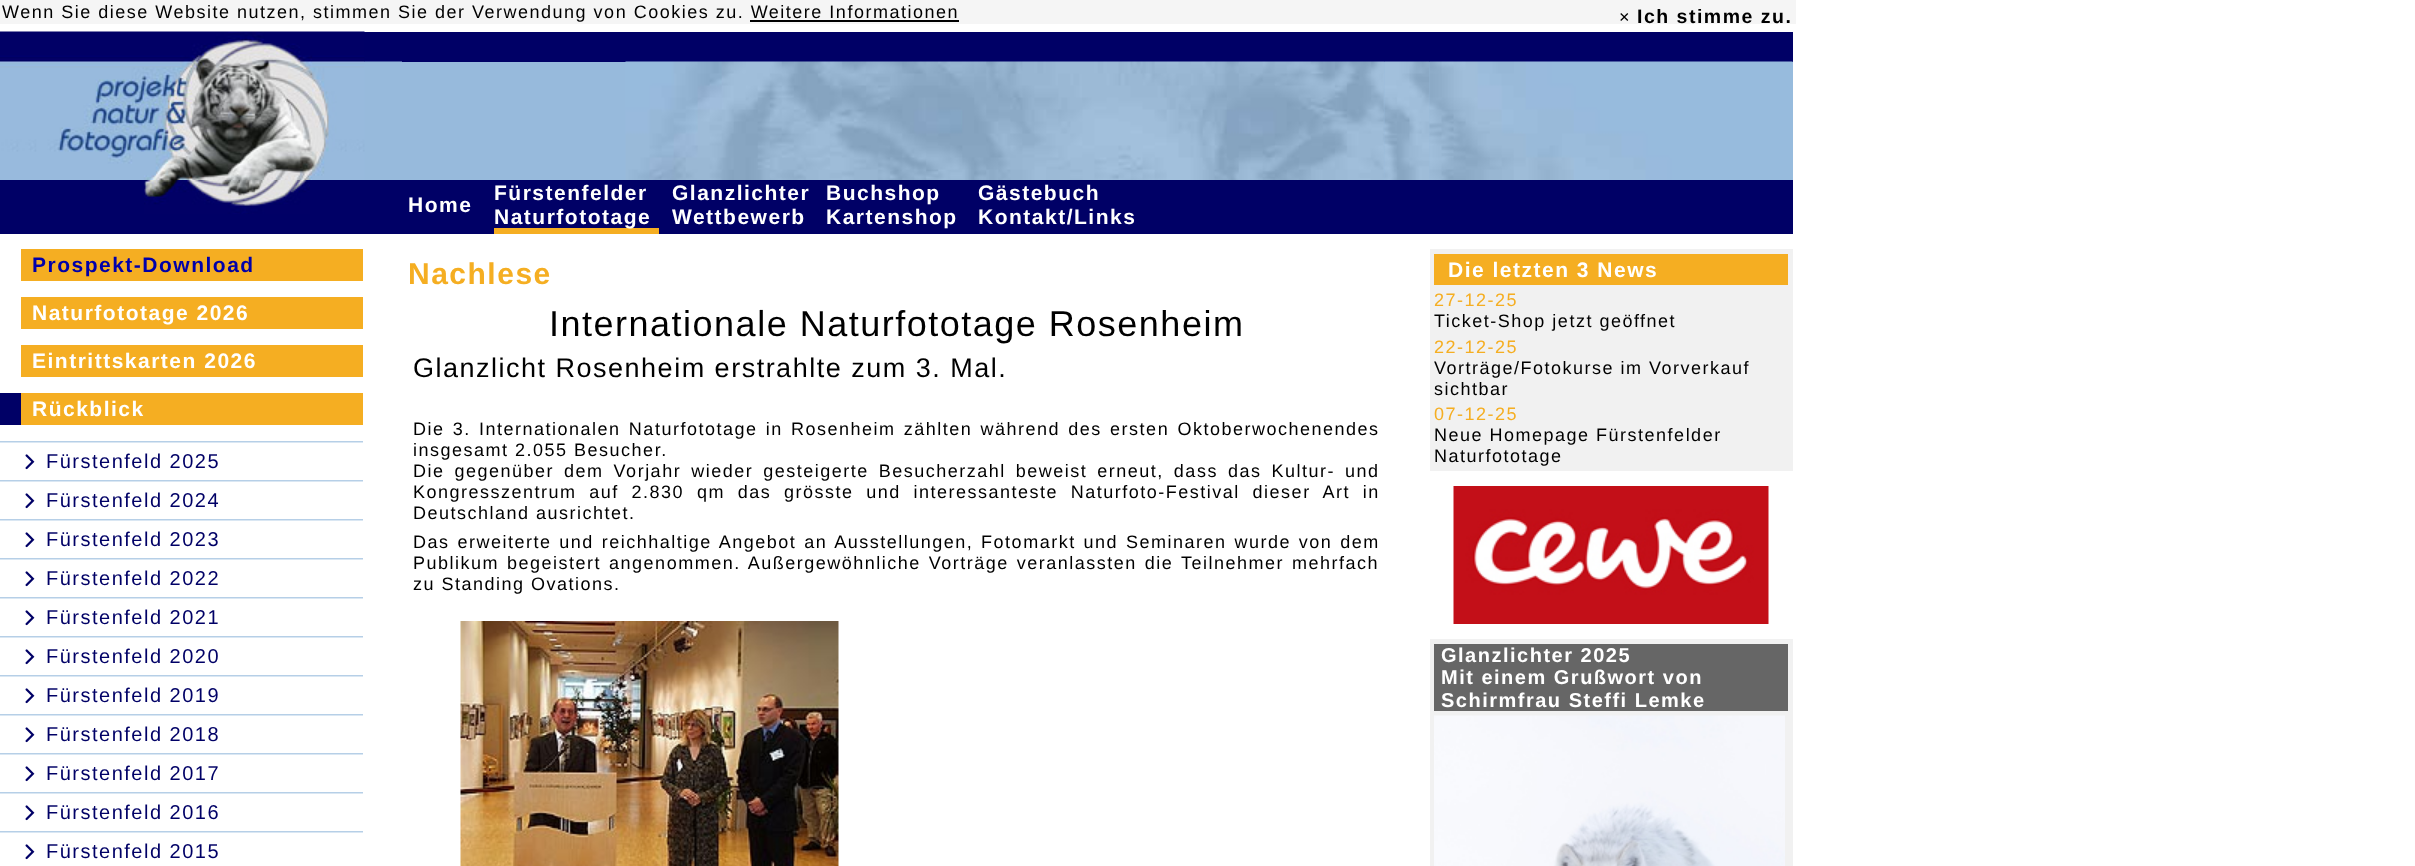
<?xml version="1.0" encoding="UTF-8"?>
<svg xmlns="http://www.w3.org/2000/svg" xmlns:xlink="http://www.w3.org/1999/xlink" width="2415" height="866">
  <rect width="100%" height="100%" fill="#ffffff" />
  <rect width="1796" height="24" fill="#f5f5f5" />
  <rect x="750" y="20" width="209" height="2" fill="#000000" />
  <rect x="364" y="32" width="1429" height="30" fill="#000066" />
  <rect x="364" y="62" width="1429" height="118" fill="#97badc" />
  <image x="0" y="31" width="365" height="149" xlink:href="image1.png" />
  <image x="364" y="61" width="38" height="1" xlink:href="image2.png" />
  <image x="625" y="61" width="760" height="119" xlink:href="image3.png" />
  <image x="1384" y="61" width="46" height="119" xlink:href="image4.png" />
  <image x="1429" y="61" width="364" height="119" xlink:href="image5.png" />
  <rect y="180" width="1793" height="54" fill="#000066" />
  <image x="144" y="180" width="166" height="34" xlink:href="image6.png" />
  <rect x="494" y="228" width="165" height="6" fill="#f5ae22" />
  <rect x="21" y="249" width="342" height="32" fill="#f5ae22" />
  <rect x="21" y="297" width="342" height="32" fill="#f5ae22" />
  <rect x="21" y="345" width="342" height="32" fill="#f5ae22" />
  <rect y="393" width="21" height="32" fill="#000066" />
  <rect x="21" y="393" width="342" height="32" fill="#f5ae22" />
  <image x="0" y="441" width="363" height="2" xlink:href="image7.png" />
  <image x="25" y="454" width="10" height="16" xlink:href="image8.png" />
  <image x="0" y="480" width="363" height="2" xlink:href="image7.png" />
  <image x="25" y="493" width="10" height="16" xlink:href="image8.png" />
  <image x="0" y="519" width="363" height="2" xlink:href="image7.png" />
  <image x="25" y="532" width="10" height="16" xlink:href="image8.png" />
  <image x="0" y="558" width="363" height="2" xlink:href="image7.png" />
  <image x="25" y="571" width="10" height="16" xlink:href="image8.png" />
  <image x="0" y="597" width="363" height="2" xlink:href="image7.png" />
  <image x="25" y="610" width="10" height="16" xlink:href="image8.png" />
  <image x="0" y="636" width="363" height="2" xlink:href="image7.png" />
  <image x="25" y="649" width="10" height="16" xlink:href="image8.png" />
  <image x="0" y="675" width="363" height="2" xlink:href="image7.png" />
  <image x="25" y="688" width="10" height="16" xlink:href="image8.png" />
  <image x="0" y="714" width="363" height="2" xlink:href="image7.png" />
  <image x="25" y="727" width="10" height="16" xlink:href="image8.png" />
  <image x="0" y="753" width="363" height="2" xlink:href="image7.png" />
  <image x="25" y="766" width="10" height="16" xlink:href="image8.png" />
  <image x="0" y="792" width="363" height="2" xlink:href="image7.png" />
  <image x="25" y="805" width="10" height="16" xlink:href="image8.png" />
  <image x="0" y="831" width="363" height="2" xlink:href="image7.png" />
  <image x="25" y="844" width="10" height="16" xlink:href="image8.png" />
  <image x="460" y="621" width="379" height="245" xlink:href="image9.png" />
  <rect x="1430" y="249" width="363" height="222" fill="#f1f1f1" />
  <rect x="1434" y="254" width="354" height="31" fill="#f5ae22" />
  <image x="1453" y="486" width="316" height="138" xlink:href="image10.png" />
  <rect x="1430" y="639" width="363" height="227" fill="#f1f1f1" />
  <rect x="1434" y="644" width="354" height="67" fill="#666666" />
  <image x="1434" y="715" width="351" height="151" xlink:href="image11.png" />
  <text x="2" y="18" style="font-family: Liberation Sans; font-size: 18px; letter-spacing: 1.5px; fill: #000000">Wenn Sie diese Website nutzen, stimmen Sie der Verwendung von Cookies zu. Weitere Informationen</text>
  <text x="1619" y="23" style="font-family: Liberation Sans; font-size: 18px; letter-spacing: 1.5px; fill: #000000">×</text>
  <text x="1637" y="23" style="font-family: Liberation Sans; font-size: 19.5px; font-weight: bold; letter-spacing: 1.5px; fill: #000000">Ich stimme zu.</text>
  <text x="408" y="212" style="font-family: Liberation Sans; font-size: 21px; font-weight: bold; letter-spacing: 1.5px; fill: #ffffff">Home</text>
  <text x="494" y="200" style="font-family: Liberation Sans; font-size: 21px; font-weight: bold; letter-spacing: 1.5px; fill: #ffffff">Fürstenfelder</text>
  <text x="494" y="224" style="font-family: Liberation Sans; font-size: 21px; font-weight: bold; letter-spacing: 1.5px; fill: #ffffff">Naturfototage</text>
  <text x="672" y="200" style="font-family: Liberation Sans; font-size: 21px; font-weight: bold; letter-spacing: 1.5px; fill: #ffffff">Glanzlichter</text>
  <text x="672" y="224" style="font-family: Liberation Sans; font-size: 21px; font-weight: bold; letter-spacing: 1.5px; fill: #ffffff">Wettbewerb</text>
  <text x="826" y="200" style="font-family: Liberation Sans; font-size: 21px; font-weight: bold; letter-spacing: 1.5px; fill: #ffffff">Buchshop</text>
  <text x="826" y="224" style="font-family: Liberation Sans; font-size: 21px; font-weight: bold; letter-spacing: 1.5px; fill: #ffffff">Kartenshop</text>
  <text x="978" y="200" style="font-family: Liberation Sans; font-size: 21px; font-weight: bold; letter-spacing: 1.5px; fill: #ffffff">Gästebuch</text>
  <text x="978" y="224" style="font-family: Liberation Sans; font-size: 21px; font-weight: bold; letter-spacing: 1.5px; fill: #ffffff">Kontakt/Links</text>
  <text x="32" y="272" style="font-family: Liberation Sans; font-size: 21px; font-weight: bold; letter-spacing: 1.5px; fill: #0000aa">Prospekt-Download</text>
  <text x="32" y="320" style="font-family: Liberation Sans; font-size: 21px; font-weight: bold; letter-spacing: 1.5px; fill: #ffffff">Naturfototage 2026</text>
  <text x="32" y="368" style="font-family: Liberation Sans; font-size: 21px; font-weight: bold; letter-spacing: 1.5px; fill: #ffffff">Eintrittskarten 2026</text>
  <text x="32" y="416" style="font-family: Liberation Sans; font-size: 21px; font-weight: bold; letter-spacing: 1.5px; fill: #ffffff">Rückblick</text>
  <text x="46" y="468" style="font-family: Liberation Sans; font-size: 20px; letter-spacing: 1.5px; fill: #000066">Fürstenfeld 2025</text>
  <text x="46" y="507" style="font-family: Liberation Sans; font-size: 20px; letter-spacing: 1.5px; fill: #000066">Fürstenfeld 2024</text>
  <text x="46" y="546" style="font-family: Liberation Sans; font-size: 20px; letter-spacing: 1.5px; fill: #000066">Fürstenfeld 2023</text>
  <text x="46" y="585" style="font-family: Liberation Sans; font-size: 20px; letter-spacing: 1.5px; fill: #000066">Fürstenfeld 2022</text>
  <text x="46" y="624" style="font-family: Liberation Sans; font-size: 20px; letter-spacing: 1.5px; fill: #000066">Fürstenfeld 2021</text>
  <text x="46" y="663" style="font-family: Liberation Sans; font-size: 20px; letter-spacing: 1.5px; fill: #000066">Fürstenfeld 2020</text>
  <text x="46" y="702" style="font-family: Liberation Sans; font-size: 20px; letter-spacing: 1.5px; fill: #000066">Fürstenfeld 2019</text>
  <text x="46" y="741" style="font-family: Liberation Sans; font-size: 20px; letter-spacing: 1.5px; fill: #000066">Fürstenfeld 2018</text>
  <text x="46" y="780" style="font-family: Liberation Sans; font-size: 20px; letter-spacing: 1.5px; fill: #000066">Fürstenfeld 2017</text>
  <text x="46" y="819" style="font-family: Liberation Sans; font-size: 20px; letter-spacing: 1.5px; fill: #000066">Fürstenfeld 2016</text>
  <text x="46" y="858" style="font-family: Liberation Sans; font-size: 20px; letter-spacing: 1.5px; fill: #000066">Fürstenfeld 2015</text>
  <text x="408" y="284" style="font-family: Liberation Sans; font-size: 30px; font-weight: bold; letter-spacing: 1.5px; fill: #f5ae22">Nachlese</text>
  <text x="549" y="336" style="font-family: Liberation Sans; font-size: 36px; letter-spacing: 1.5px; fill: #000000">Internationale Naturfototage Rosenheim</text>
  <text x="413" y="377" style="font-family: Liberation Sans; font-size: 27px; letter-spacing: 1.5px; fill: #000000">Glanzlicht Rosenheim erstrahlte zum 3. Mal.</text>
  <text x="413" y="435" word-spacing="1.75" style="font-family: Liberation Sans; font-size: 18px; letter-spacing: 1.5px; fill: #000000">Die 3. Internationalen Naturfototage in Rosenheim zählten während des ersten Oktoberwochenendes</text>
  <text x="413" y="456" style="font-family: Liberation Sans; font-size: 18px; letter-spacing: 1.5px; fill: #000000">insgesamt 2.055 Besucher.</text>
  <text x="413" y="477" word-spacing="3.5" style="font-family: Liberation Sans; font-size: 18px; letter-spacing: 1.5px; fill: #000000">Die gegenüber dem Vorjahr wieder gesteigerte Besucherzahl beweist erneut, dass das Kultur- und</text>
  <text x="413" y="498" word-spacing="6.25" style="font-family: Liberation Sans; font-size: 18px; letter-spacing: 1.5px; fill: #000000">Kongresszentrum auf 2.830 qm das grösste und interessanteste Naturfoto-Festival dieser Art in</text>
  <text x="413" y="519" style="font-family: Liberation Sans; font-size: 18px; letter-spacing: 1.5px; fill: #000000">Deutschland ausrichtet.</text>
  <text x="413" y="548" word-spacing="1.4" style="font-family: Liberation Sans; font-size: 18px; letter-spacing: 1.5px; fill: #000000">Das erweiterte und reichhaltige Angebot an Ausstellungen, Fotomarkt und Seminaren wurde von dem</text>
  <text x="413" y="569" word-spacing="1.5" style="font-family: Liberation Sans; font-size: 18px; letter-spacing: 1.5px; fill: #000000">Publikum begeistert angenommen. Außergewöhnliche Vorträge veranlassten die Teilnehmer mehrfach</text>
  <text x="413" y="590" style="font-family: Liberation Sans; font-size: 18px; letter-spacing: 1.5px; fill: #000000">zu Standing Ovations.</text>
  <text x="1448" y="277" style="font-family: Liberation Sans; font-size: 21px; font-weight: bold; letter-spacing: 1.5px; fill: #ffffff">Die letzten 3 News</text>
  <text x="1434" y="306" style="font-family: Liberation Sans; font-size: 18px; letter-spacing: 1.5px; fill: #f5ae22">27-12-25</text>
  <text x="1434" y="327" style="font-family: Liberation Sans; font-size: 18px; letter-spacing: 1.5px; fill: #000000">Ticket-Shop jetzt geöffnet</text>
  <text x="1434" y="353" style="font-family: Liberation Sans; font-size: 18px; letter-spacing: 1.5px; fill: #f5ae22">22-12-25</text>
  <text x="1434" y="374" style="font-family: Liberation Sans; font-size: 18px; letter-spacing: 1.5px; fill: #000000">Vorträge/Fotokurse im Vorverkauf</text>
  <text x="1434" y="395" style="font-family: Liberation Sans; font-size: 18px; letter-spacing: 1.5px; fill: #000000">sichtbar</text>
  <text x="1434" y="420" style="font-family: Liberation Sans; font-size: 18px; letter-spacing: 1.5px; fill: #f5ae22">07-12-25</text>
  <text x="1434" y="441" style="font-family: Liberation Sans; font-size: 18px; letter-spacing: 1.5px; fill: #000000">Neue Homepage Fürstenfelder</text>
  <text x="1434" y="462" style="font-family: Liberation Sans; font-size: 18px; letter-spacing: 1.5px; fill: #000000">Naturfototage</text>
  <text x="1441" y="662" style="font-family: Liberation Sans; font-size: 20px; font-weight: bold; letter-spacing: 1.5px; fill: #ffffff">Glanzlichter 2025</text>
  <text x="1441" y="684" style="font-family: Liberation Sans; font-size: 20px; font-weight: bold; letter-spacing: 1.5px; fill: #ffffff">Mit einem Grußwort von</text>
  <text x="1441" y="707" style="font-family: Liberation Sans; font-size: 20px; font-weight: bold; letter-spacing: 1.5px; fill: #ffffff">Schirmfrau Steffi Lemke</text>
</svg>
